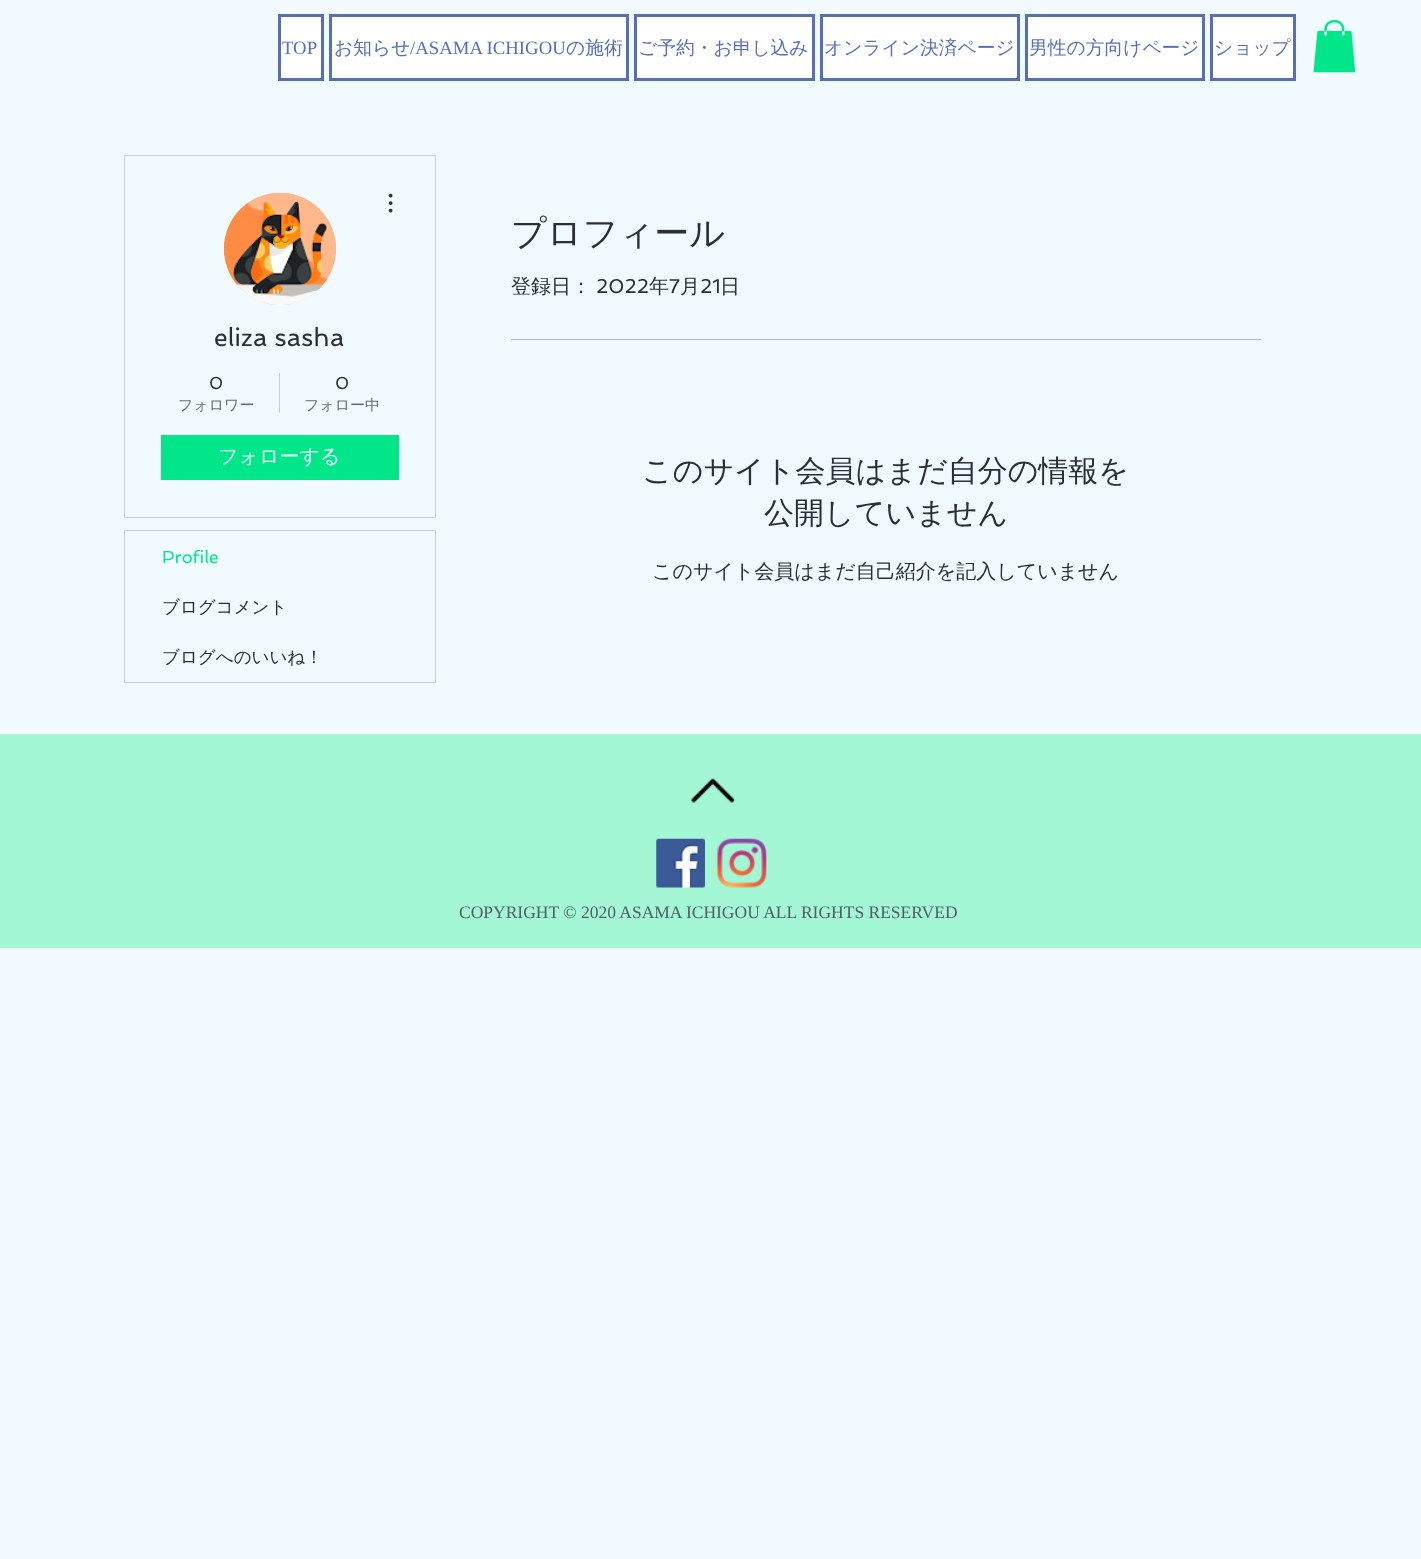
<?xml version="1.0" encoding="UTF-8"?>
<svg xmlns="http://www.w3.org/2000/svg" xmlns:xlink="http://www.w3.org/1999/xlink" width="1421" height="1559">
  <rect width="100%" height="100%" fill="#f0faff" />
  <rect x="279.5" y="15.5" width="43" height="64" fill="#ffffff" stroke="#566fb8" stroke-width="3" />
  <rect x="330.5" y="15.5" width="297" height="64" fill="#ffffff" stroke="#566fb8" stroke-width="3" />
  <rect x="635.5" y="15.5" width="178" height="64" fill="#ffffff" stroke="#566fb8" stroke-width="3" />
  <rect x="821.5" y="15.5" width="197" height="64" fill="#ffffff" stroke="#566fb8" stroke-width="3" />
  <rect x="1026.5" y="15.5" width="177" height="64" fill="#ffffff" stroke="#566fb8" stroke-width="3" />
  <rect x="1211.5" y="15.5" width="83" height="64" fill="#ffffff" stroke="#566fb8" stroke-width="3" />
  <image x="1313" y="20" width="43" height="53" xlink:href="image1.png" />
  <rect x="124.5" y="155.5" width="311" height="362" fill="none" stroke="#c8d1d6" />
  <circle cx="280" cy="249" r="56" fill="#d8d8d8" />
  <image x="224" y="192" width="112" height="113" xlink:href="image2.png" />
  <image x="388" y="193" width="5" height="20" xlink:href="image3.png" />
  <rect x="279" y="373" width="1" height="40" fill="#c8d1d6" />
  <rect x="161" y="435" width="238" height="45" fill="#00e689" />
  <rect x="124.5" y="530.5" width="311" height="152" fill="none" stroke="#c8d1d6" />
  <rect x="511" y="339" width="750" height="1" fill="#b4bdc2" />
  <rect y="734" width="1421" height="214" fill="#a4f7d5" />
  <image x="691" y="778" width="44" height="25" xlink:href="image4.png" />
  <image x="656" y="838" width="49" height="50" xlink:href="image5.png" />
  <image x="717" y="838" width="50" height="50" xlink:href="image6.png" />
  <text x="282" y="54" style="font-family: Liberation Serif; font-size: 18.75px; fill: #566fb8">TOP</text>
  <text x="334" y="54" style="font-family: WenQuanYi Zen Hei; font-size: 18.75px; font-weight: 500; fill: #566fb8">お知らせ</text>
  <text x="410" y="54" style="font-family: Liberation Serif; font-size: 18.75px; fill: #566fb8">/ASAMA ICHIGOU</text>
  <text x="566" y="54" style="font-family: WenQuanYi Zen Hei; font-size: 18.75px; font-weight: 500; fill: #566fb8">の施術</text>
  <text x="638" y="54" style="font-family: WenQuanYi Zen Hei; font-size: 18.75px; font-weight: 500; fill: #566fb8">ご予約・お申し込み</text>
  <text x="824" y="54" style="font-family: WenQuanYi Zen Hei; font-size: 18.75px; font-weight: 500; fill: #566fb8">オンライン決済ページ</text>
  <text x="1029" y="54" style="font-family: WenQuanYi Zen Hei; font-size: 18.75px; font-weight: 500; fill: #566fb8">男性の方向けページ</text>
  <text x="1214" y="54" style="font-family: WenQuanYi Zen Hei; font-size: 18.75px; font-weight: 500; fill: #566fb8">ショップ</text>
  <text x="214" y="346" style="font-family: Spinnaker; font-size: 25px; fill: #292f33">eliza sasha</text>
  <text x="209" y="389" style="font-family: Spinnaker; font-size: 17.5px; fill: #292f33">0</text>
  <text x="178" y="410" style="font-family: WenQuanYi Zen Hei; font-size: 15px; font-weight: 500; fill: #656c70">フォロワー</text>
  <text x="335" y="389" style="font-family: Spinnaker; font-size: 17.5px; fill: #292f33">0</text>
  <text x="304" y="410" style="font-family: WenQuanYi Zen Hei; font-size: 15px; font-weight: 500; fill: #656c70">フォロー中</text>
  <text x="218" y="463" style="font-family: WenQuanYi Zen Hei; font-size: 20px; font-weight: 500; fill: #f0faff">フォローする</text>
  <text x="162" y="563" style="font-family: Spinnaker; font-size: 17.5px; fill: #00e689">Profile</text>
  <text x="162" y="613" style="font-family: WenQuanYi Zen Hei; font-size: 17.5px; font-weight: 500; fill: #292f33">ブログコメント</text>
  <text x="162" y="663" style="font-family: WenQuanYi Zen Hei; font-size: 17.5px; font-weight: 500; fill: #292f33">ブログへのいいね！</text>
  <text x="511" y="245" style="font-family: WenQuanYi Zen Hei; font-size: 35px; font-weight: 500; fill: #292f33">プロフィール</text>
  <text x="511" y="293" style="font-family: WenQuanYi Zen Hei; font-size: 20px; font-weight: 500; fill: #292f33">登録日：</text>
  <text x="596" y="293" style="font-family: Spinnaker; font-size: 20px; fill: #292f33">2022</text>
  <text x="649" y="293" style="font-family: WenQuanYi Zen Hei; font-size: 20px; font-weight: 500; fill: #292f33">年</text>
  <text x="669" y="293" style="font-family: Spinnaker; font-size: 20px; fill: #292f33">7</text>
  <text x="680" y="293" style="font-family: WenQuanYi Zen Hei; font-size: 20px; font-weight: 500; fill: #292f33">月</text>
  <text x="700" y="293" style="font-family: Spinnaker; font-size: 20px; fill: #292f33">21</text>
  <text x="720" y="293" style="font-family: WenQuanYi Zen Hei; font-size: 20px; font-weight: 500; fill: #292f33">日</text>
  <text x="642" y="481" style="font-family: WenQuanYi Zen Hei; font-size: 30px; font-weight: 500; fill: #292f33">このサイト会員はまだ自分の情報を</text>
  <text x="764" y="523" style="font-family: WenQuanYi Zen Hei; font-size: 30px; font-weight: 500; fill: #292f33">公開していません</text>
  <text x="652" y="578" style="font-family: WenQuanYi Zen Hei; font-size: 20px; font-weight: 500; fill: #292f33">このサイト会員はまだ自己紹介を記入していません</text>
  <text x="459" y="918" style="font-family: Liberation Serif; font-size: 17.5px; fill: #515e65">COPYRIGHT © 2020 ASAMA ICHIGOU ALL RIGHTS RESERVED</text>
</svg>
